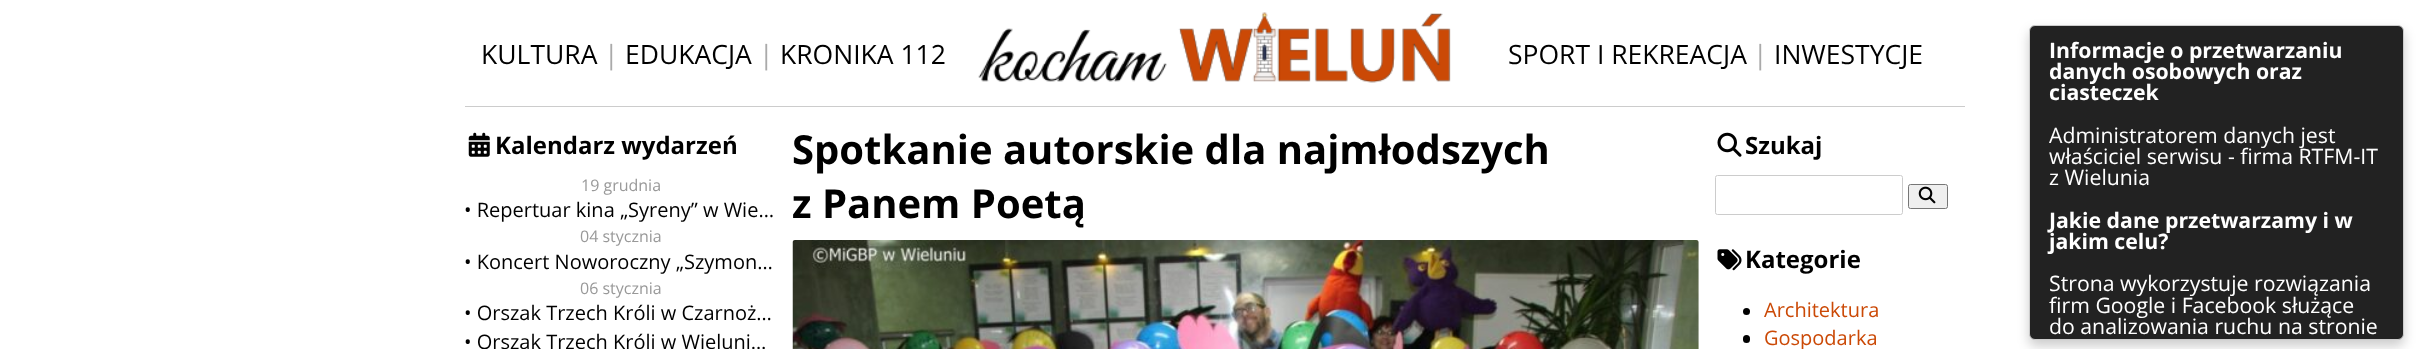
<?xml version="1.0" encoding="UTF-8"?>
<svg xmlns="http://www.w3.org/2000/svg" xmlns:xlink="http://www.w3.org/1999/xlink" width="2428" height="349">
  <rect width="100%" height="100%" fill="#ffffff" />
  <rect x="465" y="106" width="1500" height="1" fill="#cccccc" />
  <image x="978" y="12" width="473" height="71" xlink:href="image1.png" />
  <image x="468" y="132" width="22" height="25" xlink:href="image2.png" />
  <image x="792" y="240" width="907" height="109" xlink:href="image3.png" />
  <image x="1717" y="132" width="25" height="25" xlink:href="image4.png" />
  <rect x="1715.5" y="175.5" width="187" height="39" rx="2" fill="none" stroke="#cccccc" />
  <rect x="1908.5" y="184.5" width="39" height="24" rx="2" fill="#efefef" stroke="#767676" />
  <image x="1918" y="186" width="18" height="18" xlink:href="image5.png" />
  <image x="1717" y="249" width="25" height="22" xlink:href="image6.png" />
  <circle cx="1746.5" cy="311.5" r="3.5" fill="#000000" />
  <rect x="1743" y="335" width="7" height="8" rx="3.5" fill="#000000" />
  <rect x="2029" y="31" width="375" height="315" rx="6" fill="#000000" fill-opacity="0.2" filter="blur(6px)" />
  <rect x="2029.5" y="25.5" width="374" height="314" rx="5.5" fill="#222222" stroke="#cccccc" />
  <text x="481" y="64" style="font-family: Open Sans; font-size: 26.5px; fill: #000000">KULTURA</text>
  <text x="604" y="64" style="font-family: Open Sans; font-size: 26.5px; fill: #aaaaaa">|</text>
  <text x="625" y="64" style="font-family: Open Sans; font-size: 26.5px; fill: #000000">EDUKACJA</text>
  <text x="759" y="64" style="font-family: Open Sans; font-size: 26.5px; fill: #aaaaaa">|</text>
  <text x="780" y="64" style="font-family: Open Sans; font-size: 26.5px; fill: #000000">KRONIKA 112</text>
  <text x="1508" y="64" style="font-family: Open Sans; font-size: 26.5px; fill: #000000">SPORT I REKREACJA</text>
  <text x="1753" y="64" style="font-family: Open Sans; font-size: 26.5px; fill: #aaaaaa">|</text>
  <text x="1774" y="64" style="font-family: Open Sans; font-size: 26.5px; fill: #000000">INWESTYCJE</text>
  <text x="495" y="154" style="font-family: Open Sans; font-size: 24px; font-weight: bold; fill: #000000">Kalendarz wydarzeń</text>
  <text x="581" y="191" style="font-family: Open Sans; font-size: 16px; fill: #999999">19 grudnia</text>
  <text x="464" y="217" style="font-family: Open Sans; font-size: 20px; fill: #000000">• Repertuar kina „Syreny” w Wie…</text>
  <text x="580" y="242" style="font-family: Open Sans; font-size: 16px; fill: #999999">04 stycznia</text>
  <text x="464" y="269" style="font-family: Open Sans; font-size: 20px; fill: #000000">• Koncert Noworoczny „Szymon…</text>
  <text x="580" y="294" style="font-family: Open Sans; font-size: 16px; fill: #999999">06 stycznia</text>
  <text x="464" y="320" style="font-family: Open Sans; font-size: 20px; fill: #000000">• Orszak Trzech Króli w Czarnoż…</text>
  <text x="464" y="349" style="font-family: Open Sans; font-size: 20px; fill: #000000">• Orszak Trzech Króli w Wieluni…</text>
  <text x="792" y="164" style="font-family: Open Sans; font-size: 40px; font-weight: bold; fill: #000000">Spotkanie autorskie dla najmłodszych</text>
  <text x="792" y="218" style="font-family: Open Sans; font-size: 40px; font-weight: bold; fill: #000000">z Panem Poetą</text>
  <text x="1745" y="154" style="font-family: Open Sans; font-size: 24px; font-weight: bold; fill: #000000">Szukaj</text>
  <text x="1745" y="268" style="font-family: Open Sans; font-size: 24px; font-weight: bold; fill: #000000">Kategorie</text>
  <text x="1764" y="317" style="font-family: Open Sans; font-size: 20px; fill: #cb4906">Architektura</text>
  <text x="1764" y="345" style="font-family: Open Sans; font-size: 20px; fill: #cb4906">Gospodarka</text>
  <text x="2049" y="58" style="font-family: Open Sans; font-size: 21.25px; font-weight: bold; fill: #ffffff">Informacje o przetwarzaniu</text>
  <text x="2049" y="79" style="font-family: Open Sans; font-size: 21.25px; font-weight: bold; fill: #ffffff">danych osobowych oraz</text>
  <text x="2049" y="100" style="font-family: Open Sans; font-size: 21.25px; font-weight: bold; fill: #ffffff">ciasteczek</text>
  <text x="2049" y="143" style="font-family: Open Sans; font-size: 21.25px; fill: #ffffff">Administratorem danych jest</text>
  <text x="2049" y="164" style="font-family: Open Sans; font-size: 21.25px; fill: #ffffff">właściciel serwisu - firma RTFM-IT</text>
  <text x="2049" y="185" style="font-family: Open Sans; font-size: 21.25px; fill: #ffffff">z Wielunia</text>
  <text x="2049" y="228" style="font-family: Open Sans; font-size: 21.25px; font-weight: bold; fill: #ffffff">Jakie dane przetwarzamy i w</text>
  <text x="2049" y="249" style="font-family: Open Sans; font-size: 21.25px; font-weight: bold; fill: #ffffff">jakim celu?</text>
  <text x="2049" y="291" style="font-family: Open Sans; font-size: 21.25px; fill: #ffffff">Strona wykorzystuje rozwiązania</text>
  <text x="2049" y="313" style="font-family: Open Sans; font-size: 21.25px; fill: #ffffff">firm Google i Facebook służące</text>
  <text x="2049" y="334" style="font-family: Open Sans; font-size: 21.25px; fill: #ffffff">do analizowania ruchu na stronie</text>
</svg>
